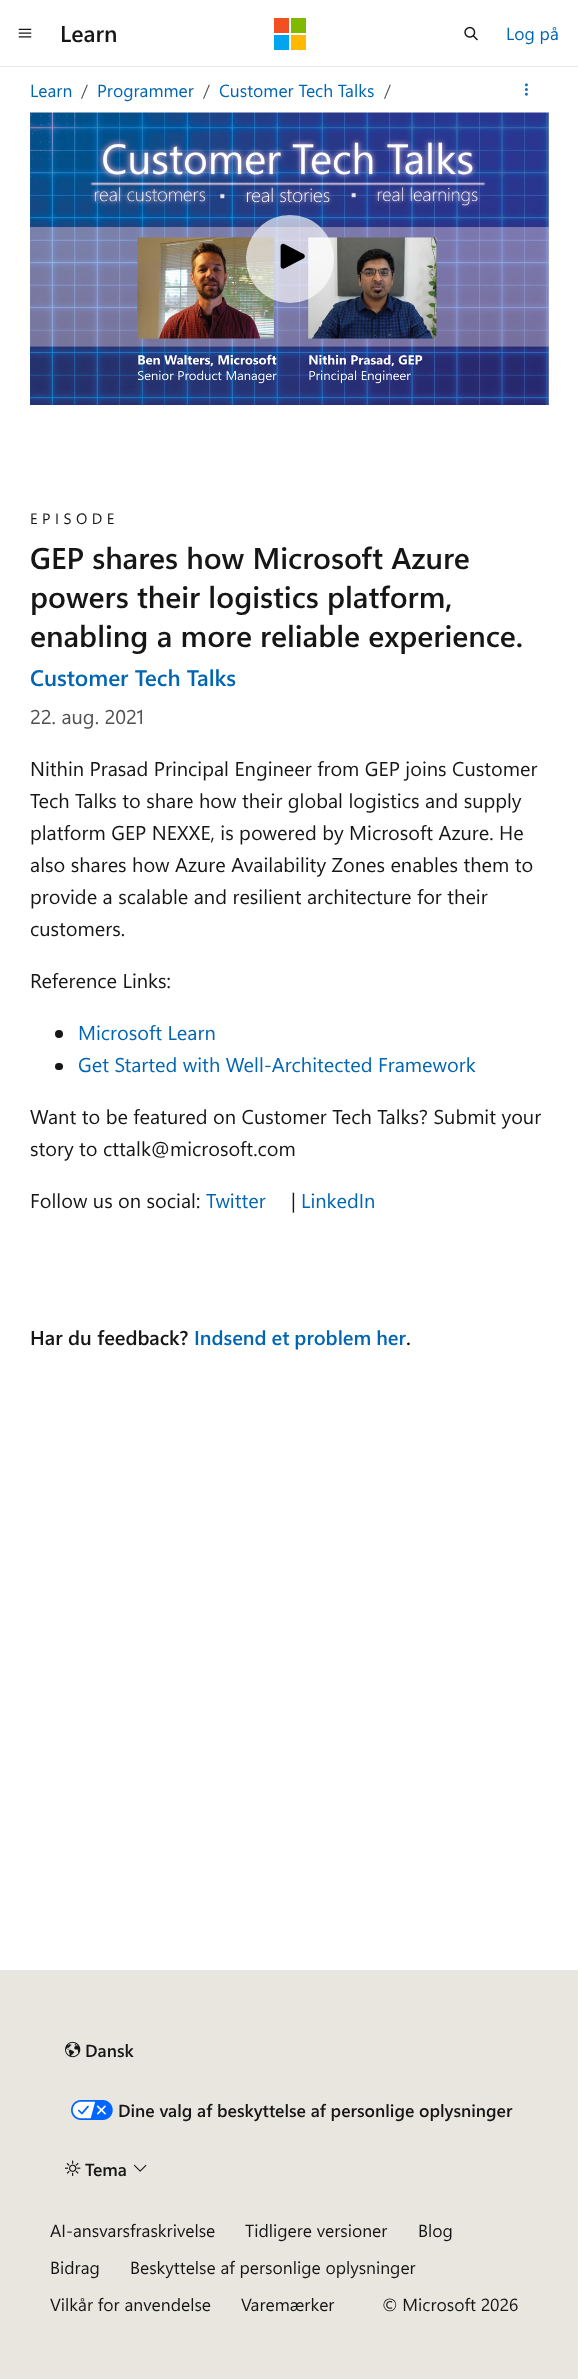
<?xml version="1.0" encoding="UTF-8"?>
<svg xmlns="http://www.w3.org/2000/svg" xmlns:xlink="http://www.w3.org/1999/xlink" width="578" height="2379">
  <rect width="100%" height="100%" fill="#ffffff" />
  <rect y="66" width="578" height="1" fill="#e6e6e6" />
  <image x="18" y="28" width="14" height="10" xlink:href="image1.png" />
  <rect x="274" y="18" width="15" height="15" fill="#f25022" />
  <rect x="291" y="18" width="15" height="15" fill="#7fba00" />
  <rect x="274" y="35" width="15" height="15" fill="#00a4ef" />
  <rect x="291" y="35" width="15" height="15" fill="#ffb900" />
  <image x="464" y="26" width="14" height="15" xlink:href="image2.png" />
  <image x="525" y="83" width="3" height="13" xlink:href="image3.png" />
  <image x="30" y="112" width="519" height="293" xlink:href="image4.png" />
  <circle cx="290" cy="259" r="44" fill="#ffffff" fill-opacity="0.65" />
  <image x="280" y="243" width="25" height="26" xlink:href="image5.png" />
  <circle cx="59" cy="1034" r="4" fill="#161616" />
  <rect x="55" y="1063" width="8" height="7" rx="3.5" fill="#161616" />
  <rect y="1971" width="578" height="408" fill="#e8e6df" />
  <rect y="1970" width="578" height="1" fill="#e6e6e6" />
  <image x="65" y="2041" width="16" height="17" xlink:href="image6.png" />
  <image x="71" y="2100" width="42" height="20" xlink:href="image7.png" />
  <image x="65" y="2160" width="16" height="16" xlink:href="image8.png" />
  <image x="133" y="2164" width="14" height="8" xlink:href="image9.png" />
  <text x="60" y="42" style="font-family: Segoe UI; font-size: 23px; font-weight: 600; fill: #161616">Learn</text>
  <text x="506" y="40" style="font-family: Segoe UI; font-size: 17.5px; fill: #0065b3">Log på</text>
  <text x="30" y="97" style="font-family: Segoe UI; font-size: 17.5px; fill: #0065b3">Learn</text>
  <text x="81" y="97" style="font-family: Segoe UI; font-size: 17.5px; fill: #505050">/</text>
  <text x="97" y="97" style="font-family: Segoe UI; font-size: 17.5px; fill: #0065b3">Programmer</text>
  <text x="203" y="97" style="font-family: Segoe UI; font-size: 17.5px; fill: #505050">/</text>
  <text x="219" y="97" style="font-family: Segoe UI; font-size: 17.5px; fill: #0065b3">Customer Tech Talks</text>
  <text x="384" y="97" style="font-family: Segoe UI; font-size: 17.5px; fill: #505050">/</text>
  <text x="30" y="524" style="font-family: Segoe UI; font-size: 15px; letter-spacing: 4.5px; fill: #161616">EPISODE</text>
  <text x="30" y="569" style="font-family: Segoe UI; font-size: 30px; font-weight: 600; fill: #161616">GEP shares how Microsoft Azure</text>
  <text x="30" y="608" style="font-family: Segoe UI; font-size: 30px; font-weight: 600; fill: #161616">powers their logistics platform,</text>
  <text x="30" y="647" style="font-family: Segoe UI; font-size: 30px; font-weight: 600; fill: #161616">enabling a more reliable experience.</text>
  <text x="30" y="686" style="font-family: Segoe UI; font-size: 22.5px; font-weight: 600; fill: #0065b3">Customer Tech Talks</text>
  <text x="30" y="724" style="font-family: Segoe UI; font-size: 20px; fill: #505050">22. aug. 2021</text>
  <text x="30" y="776" style="font-family: Segoe UI; font-size: 20px; fill: #161616">Nithin Prasad Principal Engineer from GEP joins Customer</text>
  <text x="30" y="808" style="font-family: Segoe UI; font-size: 20px; fill: #161616">Tech Talks to share how their global logistics and supply</text>
  <text x="30" y="840" style="font-family: Segoe UI; font-size: 20px; fill: #161616">platform GEP NEXXE, is powered by Microsoft Azure. He</text>
  <text x="30" y="872" style="font-family: Segoe UI; font-size: 20px; fill: #161616">also shares how Azure Availability Zones enables them to</text>
  <text x="30" y="904" style="font-family: Segoe UI; font-size: 20px; fill: #161616">provide a scalable and resilient architecture for their</text>
  <text x="30" y="936" style="font-family: Segoe UI; font-size: 20px; fill: #161616">customers.</text>
  <text x="30" y="988" style="font-family: Segoe UI; font-size: 20px; fill: #161616">Reference Links:</text>
  <text x="78" y="1040" style="font-family: Segoe UI; font-size: 20px; fill: #0065b3">Microsoft Learn</text>
  <text x="78" y="1072" style="font-family: Segoe UI; font-size: 20px; fill: #0065b3">Get Started with Well-Architected Framework</text>
  <text x="30" y="1124" style="font-family: Segoe UI; font-size: 20px; fill: #161616">Want to be featured on Customer Tech Talks? Submit your</text>
  <text x="30" y="1156" style="font-family: Segoe UI; font-size: 20px; fill: #161616">story to cttalk@microsoft.com</text>
  <text x="30" y="1208" style="font-family: Segoe UI; font-size: 20px; fill: #161616">Follow us on social:</text>
  <text x="206" y="1208" style="font-family: Segoe UI; font-size: 20px; fill: #0065b3">Twitter</text>
  <text x="291" y="1208" style="font-family: Segoe UI; font-size: 20px; fill: #161616">|</text>
  <text x="301" y="1208" style="font-family: Segoe UI; font-size: 20px; fill: #0065b3">LinkedIn</text>
  <text x="30" y="1345" style="font-family: Segoe UI; font-size: 20px; font-weight: 600; fill: #161616">Har du feedback?</text>
  <text x="194" y="1345" word-spacing="-0.5" style="font-family: Segoe UI; font-size: 20px; font-weight: 600; fill: #0065b3">Indsend et problem her</text>
  <text x="406" y="1345" style="font-family: Segoe UI; font-size: 20px; font-weight: 600; fill: #161616">.</text>
  <text x="85" y="2057" style="font-family: Segoe UI; font-size: 17.5px; font-weight: 600; fill: #161616">Dansk</text>
  <text x="118" y="2117" style="font-family: Segoe UI; font-size: 17.5px; font-weight: 600; fill: #161616">Dine valg af beskyttelse af personlige oplysninger</text>
  <text x="85" y="2176" style="font-family: Segoe UI; font-size: 17.5px; font-weight: 600; fill: #161616">Tema</text>
  <text x="50" y="2237" style="font-family: Segoe UI; font-size: 17.5px; fill: #161616">AI-ansvarsfraskrivelse</text>
  <text x="245" y="2237" style="font-family: Segoe UI; font-size: 17.5px; fill: #161616">Tidligere versioner</text>
  <text x="418" y="2237" style="font-family: Segoe UI; font-size: 17.5px; fill: #161616">Blog</text>
  <text x="50" y="2274" style="font-family: Segoe UI; font-size: 17.5px; fill: #161616">Bidrag</text>
  <text x="130" y="2274" style="font-family: Segoe UI; font-size: 17.5px; fill: #161616">Beskyttelse af personlige oplysninger</text>
  <text x="50" y="2311" style="font-family: Segoe UI; font-size: 17.5px; fill: #161616">Vilkår for anvendelse</text>
  <text x="241" y="2311" style="font-family: Segoe UI; font-size: 17.5px; fill: #161616">Varemærker</text>
  <text x="382" y="2311" style="font-family: Segoe UI; font-size: 17.5px; fill: #161616">© Microsoft 2026</text>
</svg>
